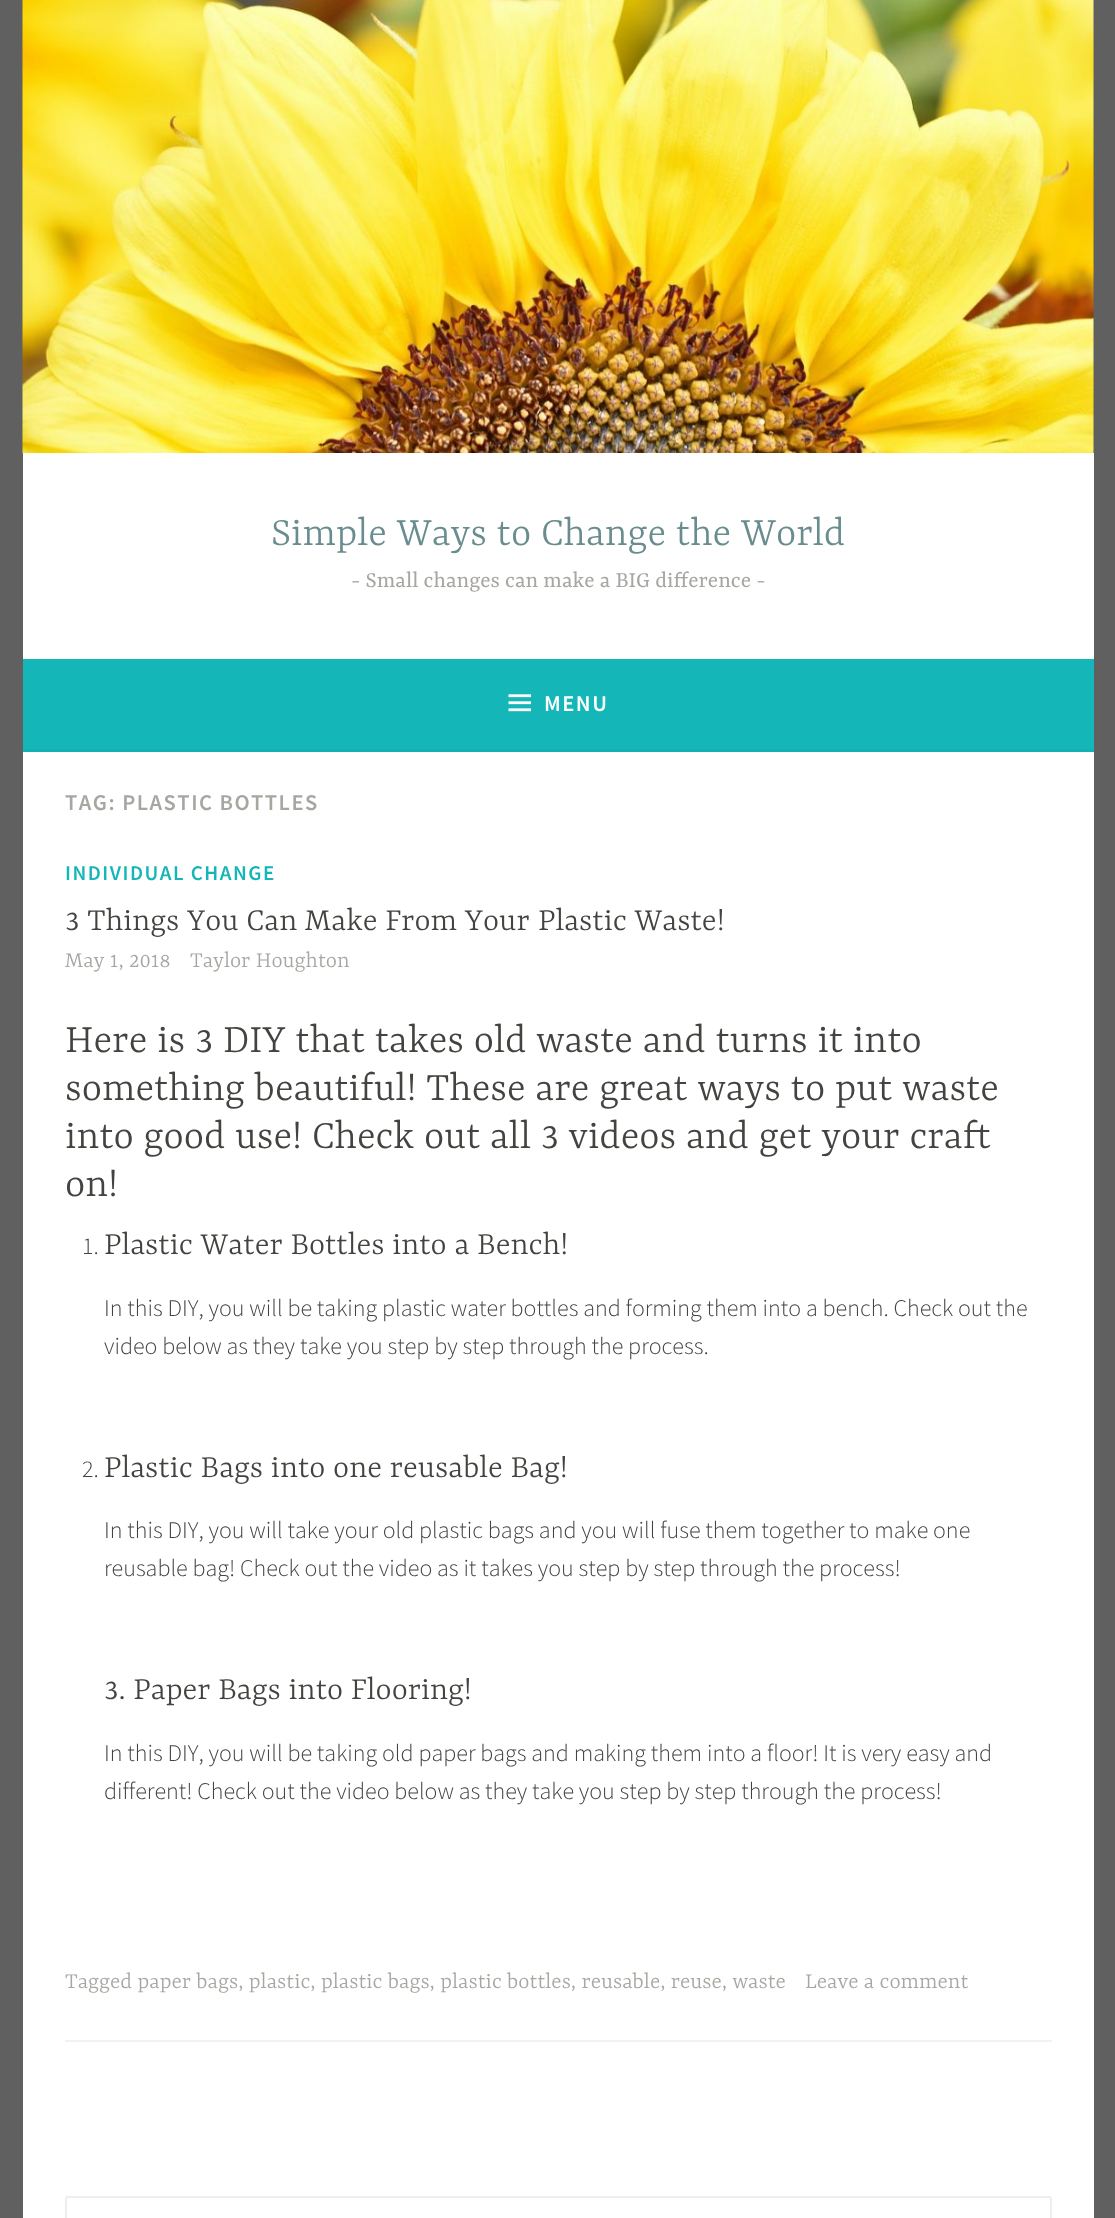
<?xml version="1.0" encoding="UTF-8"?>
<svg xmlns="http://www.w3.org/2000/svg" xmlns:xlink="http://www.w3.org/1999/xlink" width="1115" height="2218">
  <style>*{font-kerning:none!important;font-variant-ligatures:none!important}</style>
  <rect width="100%" height="100%" fill="#606060" />
  <image x="22" y="0" width="1072" height="453" xlink:href="image1.png" />
  <rect x="23" y="453" width="1071" height="206" fill="#ffffff" />
  <rect x="23" y="659" width="1071" height="90" fill="#15b6b8" />
  <rect x="23" y="749" width="1071" height="3" fill="#14b1b2" />
  <image x="508" y="694" width="23" height="18" xlink:href="image2.png" />
  <rect x="23" y="752" width="1071" height="1466" fill="#ffffff" />
  <rect x="65" y="2040" width="987" height="2" fill="#f2f2f2" />
  <rect x="66" y="2197" width="985" height="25" rx="2" fill="none" stroke="#eeeeee" stroke-width="2" />
  <text x="271" y="545" style="font-family: Yrsa; font-size: 43.5px; font-weight: 300; fill: #698d8e">Simple Ways to Change the World</text>
  <text x="351" y="587" style="font-family: Yrsa; font-size: 24px; fill: #a8a6a1">- Small changes can make a BIG difference -</text>
  <text x="544" y="711" style="font-family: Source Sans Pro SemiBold; font-size: 22.5px; font-weight: 600; letter-spacing: 1.5px; fill: #ffffff">MENU</text>
  <text x="65" y="810" style="font-family: Source Sans Pro SemiBold; font-size: 22.5px; font-weight: 600; letter-spacing: 1.5px; fill: #a8a6a1">TAG: PLASTIC BOTTLES</text>
  <text x="65" y="880" style="font-family: Source Sans Pro SemiBold; font-size: 21px; font-weight: 600; letter-spacing: 1.5px; fill: #15b6b8">INDIVIDUAL CHANGE</text>
  <text x="65" y="930" style="font-family: Yrsa; font-size: 34.5px; font-weight: 300; fill: #444340">3 Things You Can Make From Your</text>
  <text x="538" y="930" style="font-family: Yrsa; font-size: 34.5px; font-weight: 300; fill: #444340">Plastic Waste!</text>
  <text x="65" y="967" style="font-family: Yrsa; font-size: 24px; font-weight: 300; fill: #a8a6a1">May 1, 2018</text>
  <text x="190" y="967" style="font-family: Yrsa; font-size: 24px; font-weight: 300; fill: #a8a6a1">Taylor Houghton</text>
  <text x="65" y="1052" style="font-family: Yrsa; font-size: 43.5px; font-weight: 300; fill: #444340">Here is 3 DIY that takes old waste and turns it into</text>
  <text x="65" y="1100" style="font-family: Yrsa; font-size: 43.5px; font-weight: 300; fill: #444340">something beautiful! These are great ways to put waste</text>
  <text x="65" y="1148" style="font-family: Yrsa; font-size: 43.5px; font-weight: 300; fill: #444340">into good use! Check out all 3 videos and get your craft</text>
  <text x="65" y="1196" style="font-family: Yrsa; font-size: 43.5px; font-weight: 300; fill: #444340">on!</text>
  <text x="82" y="1254" style="font-family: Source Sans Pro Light; font-size: 24px; font-weight: 300; fill: #444340">1.</text>
  <text x="104" y="1254" style="font-family: Yrsa; font-size: 34.5px; font-weight: 300; fill: #444340">Plastic Water Bottles into a Bench!</text>
  <text x="104" y="1316" style="font-family: Source Sans Pro Light; font-size: 24px; font-weight: 300; fill: #444340">In this DIY, you will be taking plastic water bottles and forming them into a bench. Check out the</text>
  <text x="104" y="1354" style="font-family: Source Sans Pro Light; font-size: 24px; font-weight: 300; fill: #444340">video below as they take you step by step through the process.</text>
  <text x="82" y="1477" style="font-family: Source Sans Pro Light; font-size: 24px; font-weight: 300; fill: #444340">2.</text>
  <text x="104" y="1477" style="font-family: Yrsa; font-size: 34.5px; font-weight: 300; fill: #444340">Plastic Bags into one reusable Bag!</text>
  <text x="104" y="1538" style="font-family: Source Sans Pro Light; font-size: 24px; font-weight: 300; fill: #444340">In this DIY, you will take your old plastic bags and you will fuse them together to make one</text>
  <text x="104" y="1576" style="font-family: Source Sans Pro Light; font-size: 24px; font-weight: 300; fill: #444340">reusable bag! Check out the video as it takes you step by step through the process!</text>
  <text x="104" y="1699" style="font-family: Yrsa; font-size: 34.5px; font-weight: 300; fill: #444340">3. Paper Bags into Flooring!</text>
  <text x="104" y="1761" style="font-family: Source Sans Pro Light; font-size: 24px; font-weight: 300; fill: #444340">In this DIY, you will be taking old paper bags and making them into a floor! It is very easy and</text>
  <text x="104" y="1799" style="font-family: Source Sans Pro Light; font-size: 24px; font-weight: 300; fill: #444340">different! Check out the video below as they take you step by step through the process!</text>
  <text x="65" y="1988" style="font-family: Yrsa; font-size: 24px; font-weight: 300; fill: #a8a6a1">Tagged paper bags, plastic, plastic bags, plastic bottles, reusable, reuse, waste</text>
  <text x="805" y="1988" style="font-family: Yrsa; font-size: 24px; font-weight: 300; fill: #a8a6a1">Leave a comment</text>
</svg>
